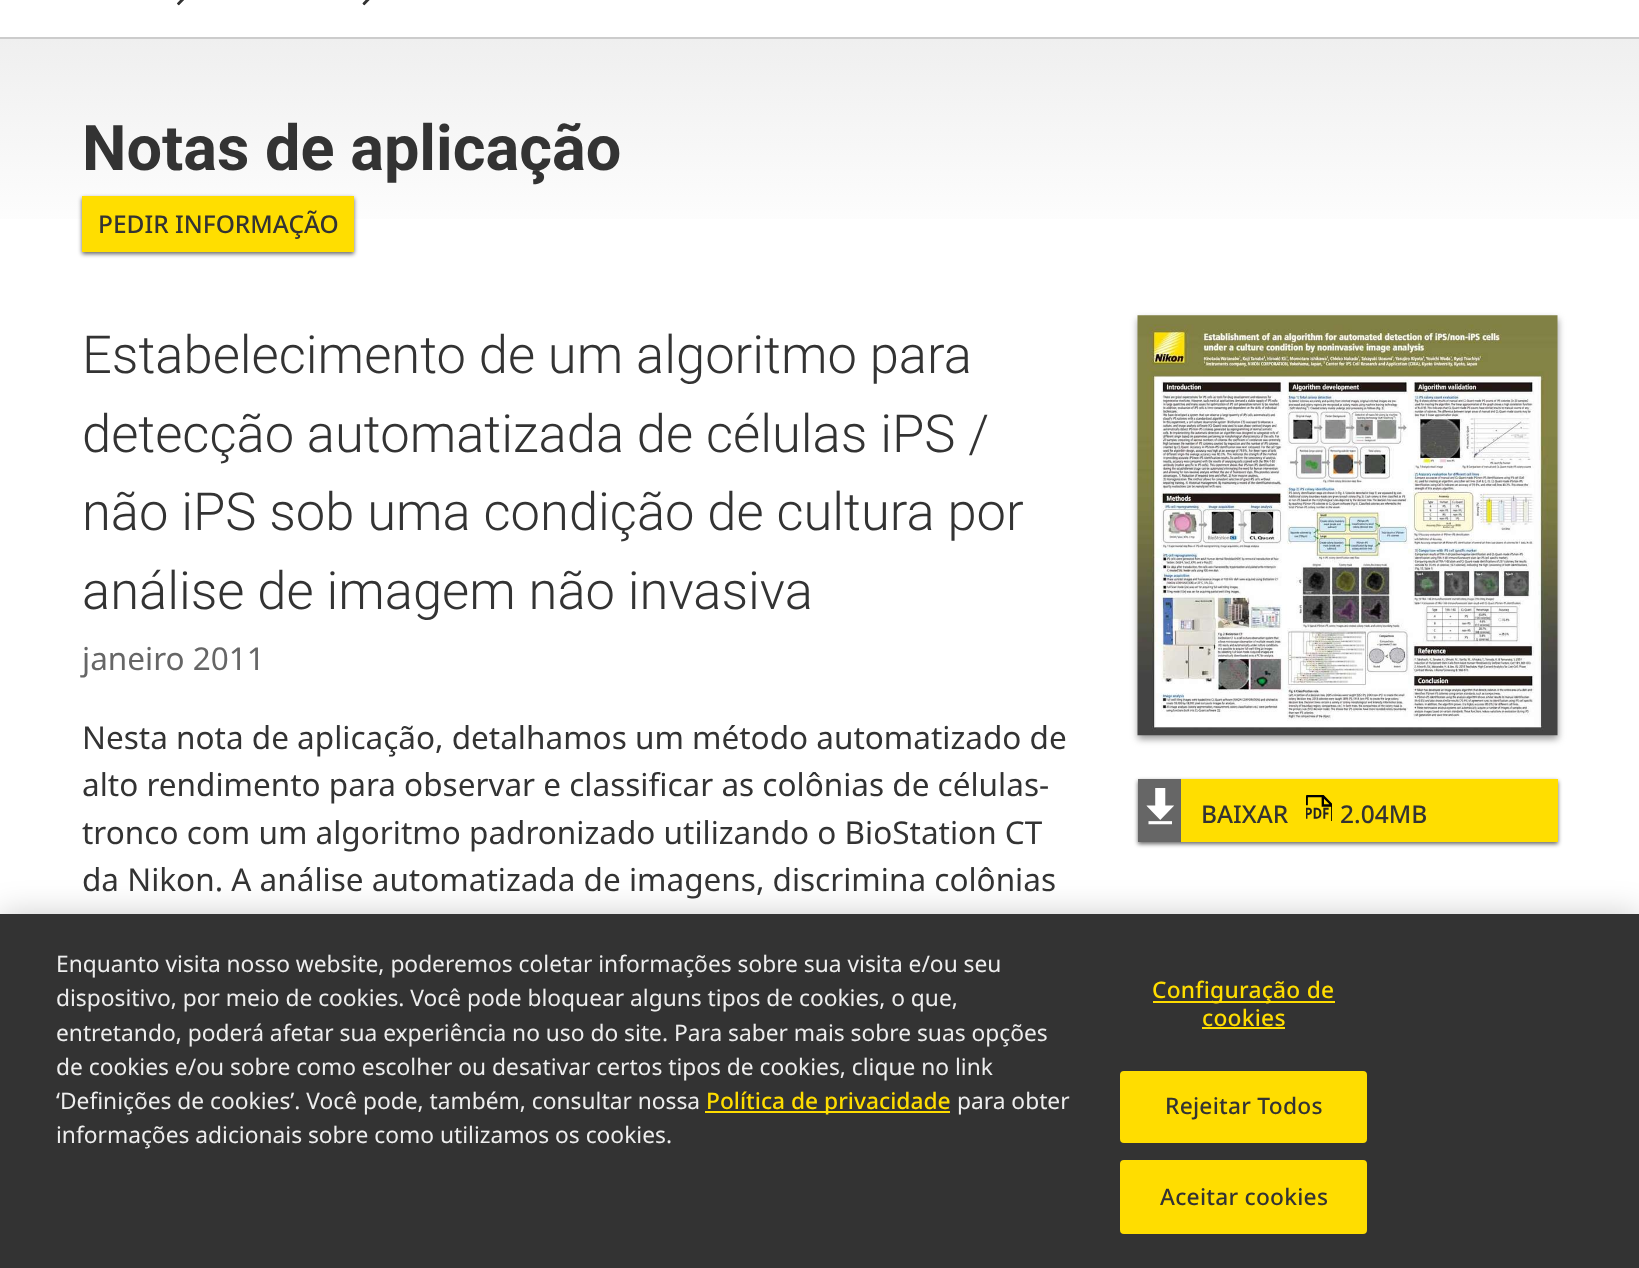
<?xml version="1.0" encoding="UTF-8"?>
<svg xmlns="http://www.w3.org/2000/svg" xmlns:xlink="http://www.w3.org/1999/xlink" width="1639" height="1268">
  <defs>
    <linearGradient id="g1" gradientUnits="userSpaceOnUse" x1="820" y1="38" x2="820" y2="252"><stop offset="0" stop-color="#efefef" /><stop offset="1" stop-color="#ffffff" /></linearGradient>
    <linearGradient id="g2" gradientUnits="userSpaceOnUse" x1="218" y1="196" x2="218" y2="308"><stop offset="0" stop-color="#ffde00" /><stop offset="0.5" stop-color="#ffde00" /><stop offset="1" stop-color="#ffff00" /></linearGradient>
    <linearGradient id="g3" gradientUnits="userSpaceOnUse" x1="1348" y1="779" x2="1348" y2="905"><stop offset="0" stop-color="#ffde00" /><stop offset="0.5" stop-color="#ffde00" /><stop offset="1" stop-color="#ffff00" /></linearGradient>
  </defs>
  <rect width="100%" height="100%" fill="#ffffff" />
  <rect y="37" width="1639" height="2" fill="#cccccc" />
  <image x="177" y="0" width="7" height="6" xlink:href="image1.png" />
  <image x="362" y="0" width="8" height="6" xlink:href="image2.png" />
  <rect y="39" width="1639" height="180" fill="url(#g1)" />
  <rect x="82" y="198" width="272" height="56" fill="#000000" fill-opacity="0.6" filter="blur(2px)" />
  <rect x="82" y="196" width="272" height="56" fill="url(#g2)" />
  <rect x="1138" y="319" width="420" height="420" fill="#999999" filter="blur(3.5px)" />
  <image x="1137" y="315" width="421" height="421" xlink:href="image3.png" />
  <rect x="1138" y="781" width="420" height="63" fill="#000000" fill-opacity="0.6" filter="blur(2px)" />
  <rect x="1181" y="779" width="377" height="63" fill="url(#g3)" />
  <rect x="1138" y="779" width="43" height="63" fill="#666666" />
  <image x="1146" y="788" width="28" height="37" xlink:href="image4.png" />
  <image x="1306" y="795" width="26" height="26" xlink:href="image5.png" />
  <rect y="914" width="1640" height="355" fill="#000000" fill-opacity="0.2" filter="blur(16px)" />
  <rect y="914" width="1639" height="354" fill="#333333" />
  <rect x="705" y="1111" width="245" height="2" fill="#ffdd00" />
  <rect x="1153" y="1001" width="182" height="2" fill="#ffdd00" />
  <rect x="1202" y="1027" width="83" height="2" fill="#ffdd00" />
  <rect x="1121" y="1072" width="245" height="70" rx="3" fill="#ffdd00" stroke="#ffdd00" stroke-width="2" />
  <rect x="1121" y="1161" width="245" height="72" rx="3" fill="#ffdd00" stroke="#ffdd00" stroke-width="2" />
  <text x="82" y="170" style="font-family: Roboto; font-size: 63px; font-weight: bold; fill: #333333">Notas de aplicação</text>
  <text x="98" y="233" style="font-family: Noto Sans; font-size: 24.5px; font-weight: 500; fill: #333333">PEDIR INFORMAÇÃO</text>
  <text x="82" y="373" style="font-family: Roboto; font-size: 52.5px; font-weight: 300; fill: #333333">Estabelecimento de um algoritmo para</text>
  <text x="82" y="452" style="font-family: Roboto; font-size: 52.5px; font-weight: 300; fill: #333333">detecção automatizada de células iPS /</text>
  <text x="82" y="530" style="font-family: Roboto; font-size: 52.5px; font-weight: 300; fill: #333333">não iPS sob uma condição de cultura por</text>
  <text x="82" y="609" style="font-family: Roboto; font-size: 52.5px; font-weight: 300; fill: #333333">análise de imagem não invasiva</text>
  <text x="82" y="670" style="font-family: Noto Sans; font-size: 31.5px; fill: #666666">janeiro 2011</text>
  <text x="82" y="749" style="font-family: Noto Sans; font-size: 31.5px; fill: #333333">Nesta nota de aplicação, detalhamos um método automatizado de</text>
  <text x="82" y="796" style="font-family: Noto Sans; font-size: 31.5px; fill: #333333">alto rendimento para observar e classificar as colônias de células-</text>
  <text x="82" y="844" style="font-family: Noto Sans; font-size: 31.5px; fill: #333333">tronco com um algoritmo padronizado utilizando o BioStation CT</text>
  <text x="82" y="891" style="font-family: Noto Sans; font-size: 31.5px; fill: #333333">da Nikon. A análise automatizada de imagens, discrimina colônias</text>
  <text x="1201" y="823" style="font-family: Noto Sans; font-size: 24.5px; font-weight: 500; fill: #333333">BAIXAR</text>
  <text x="1340" y="823" style="font-family: Noto Sans; font-size: 24.5px; font-weight: 500; fill: #333333">2.04MB</text>
  <text x="56" y="972" style="font-family: Noto Sans; font-size: 22.75px; fill: #eeeeee">Enquanto visita nosso website, poderemos coletar informações sobre sua visita e/ou seu</text>
  <text x="56" y="1006" style="font-family: Noto Sans; font-size: 22.75px; fill: #eeeeee">dispositivo, por meio de cookies. Você pode bloquear alguns tipos de cookies, o que,</text>
  <text x="56" y="1041" style="font-family: Noto Sans; font-size: 22.75px; fill: #eeeeee">entretando, poderá afetar sua experiência no uso do site. Para saber mais sobre suas opções</text>
  <text x="56" y="1075" style="font-family: Noto Sans; font-size: 22.75px; fill: #eeeeee">de cookies e/ou sobre como escolher ou desativar certos tipos de cookies, clique no link</text>
  <text x="56" y="1109" style="font-family: Noto Sans; font-size: 22.75px; fill: #eeeeee">‘Definições de cookies’. Você pode, também, consultar nossa</text>
  <text x="706" y="1109" style="font-family: Noto Sans; font-size: 22.75px; font-weight: 500; fill: #ffdd00">Política de privacidade</text>
  <text x="957" y="1109" style="font-family: Noto Sans; font-size: 22.75px; fill: #eeeeee">para obter</text>
  <text x="56" y="1143" style="font-family: Noto Sans; font-size: 22.75px; fill: #eeeeee">informações adicionais sobre como utilizamos os cookies.</text>
  <text x="1152" y="998" style="font-family: Noto Sans; font-size: 22.75px; font-weight: 500; letter-spacing: 0.25px; fill: #ffdd00">Configuração de</text>
  <text x="1202" y="1026" style="font-family: Noto Sans; font-size: 22.75px; font-weight: 500; letter-spacing: 0.25px; fill: #ffdd00">cookies</text>
  <text x="1165" y="1114" style="font-family: Noto Sans; font-size: 22.75px; font-weight: 500; letter-spacing: 0.25px; fill: #333333">Rejeitar Todos</text>
  <text x="1160" y="1205" style="font-family: Noto Sans; font-size: 22.75px; font-weight: 500; letter-spacing: 0.25px; fill: #333333">Aceitar cookies</text>
</svg>
